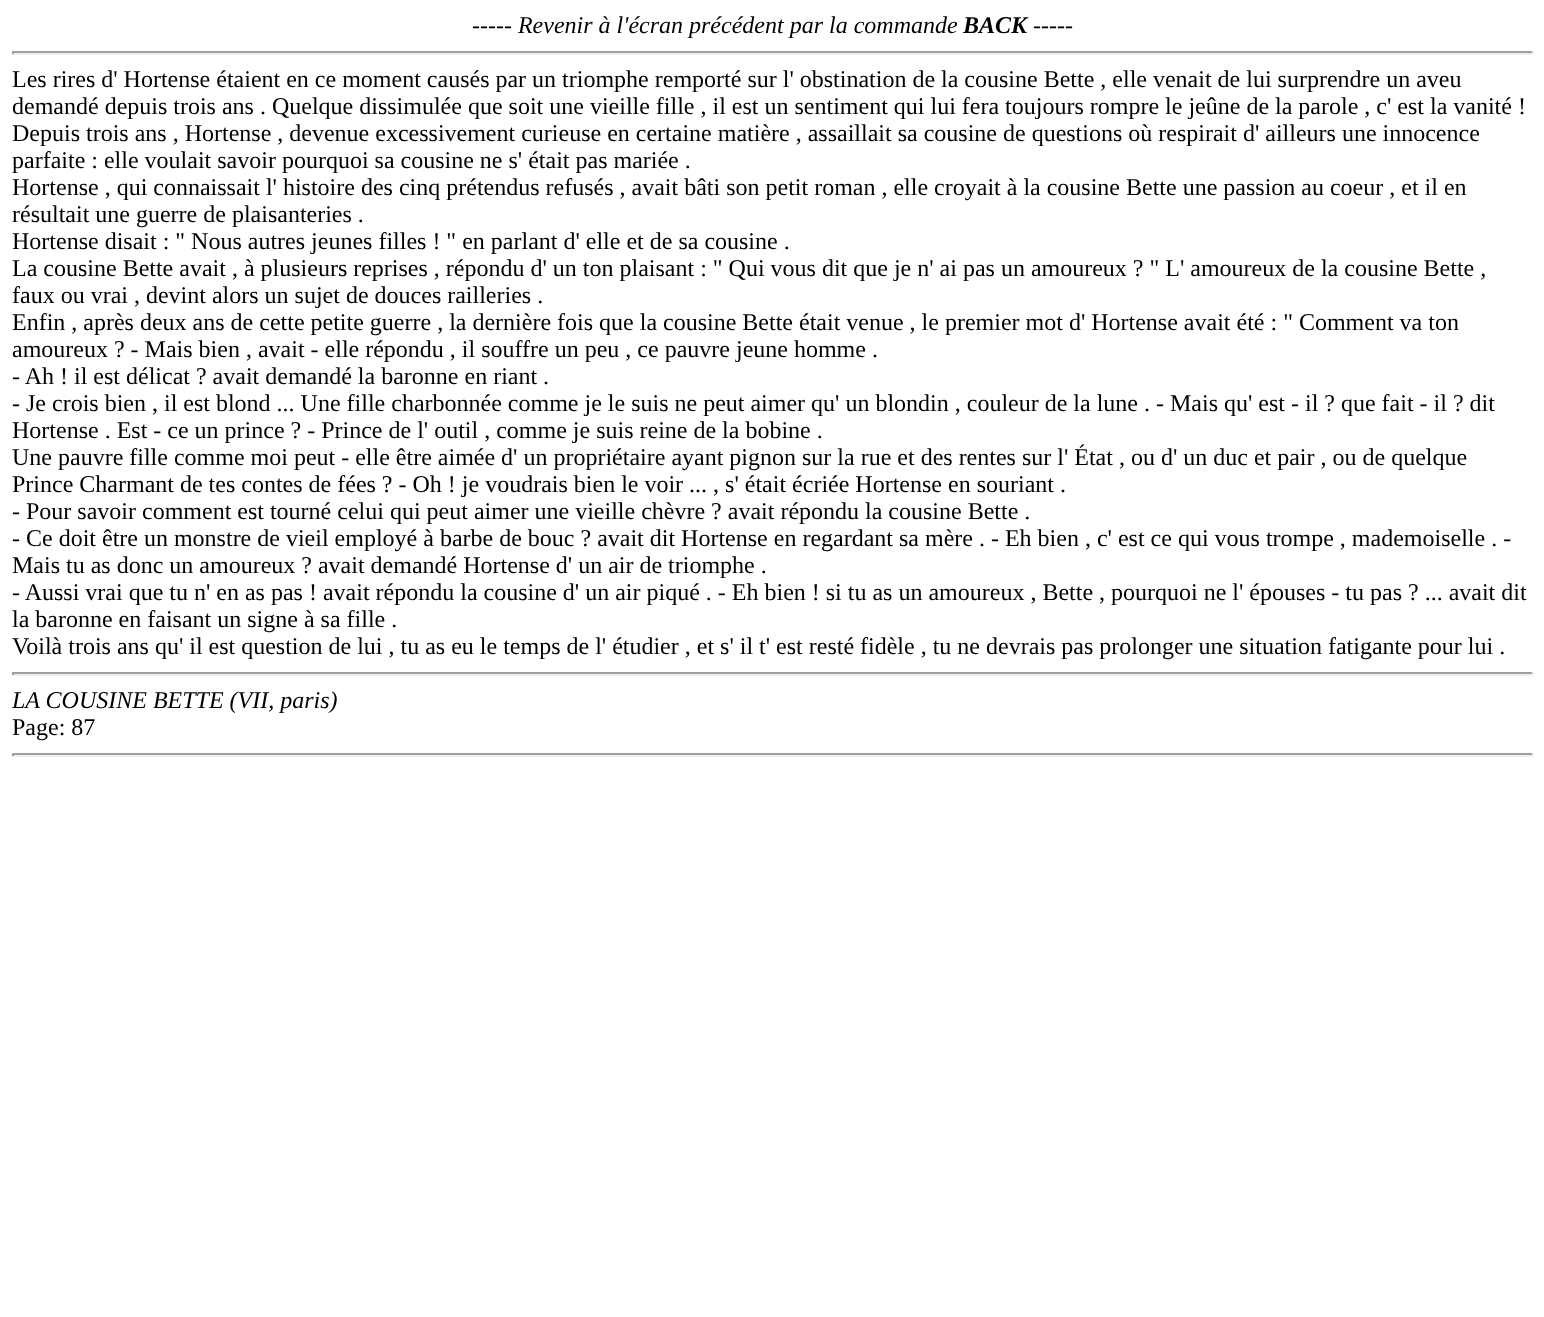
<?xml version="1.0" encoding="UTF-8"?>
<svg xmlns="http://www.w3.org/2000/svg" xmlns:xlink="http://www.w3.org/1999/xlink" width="1544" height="1317">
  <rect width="100%" height="100%" fill="#ffffff" />
  <rect x="12" y="51" width="1521" height="2" fill="#9f9f9f" />
  <rect x="1532" y="51" width="2" height="3" fill="#eeeeee" />
  <rect x="12" y="53" width="1521" height="2" fill="#eeeeee" />
  <rect x="12" y="51" width="2" height="3" fill="#9f9f9f" />
  <rect x="12" y="672" width="1521" height="2" fill="#9f9f9f" />
  <rect x="1532" y="672" width="2" height="3" fill="#eeeeee" />
  <rect x="12" y="674" width="1521" height="2" fill="#eeeeee" />
  <rect x="12" y="672" width="2" height="3" fill="#9f9f9f" />
  <rect x="12" y="753" width="1521" height="2" fill="#9f9f9f" />
  <rect x="1532" y="753" width="2" height="3" fill="#eeeeee" />
  <rect x="12" y="755" width="1521" height="2" fill="#eeeeee" />
  <rect x="12" y="753" width="2" height="3" fill="#9f9f9f" />
  <text x="472" y="33" style="font-family: Liberation Serif; font-size: 24px; font-style: italic; fill: #000000">----- Revenir à l'écran précédent par la commande</text>
  <text x="963" y="33" style="font-family: Liberation Serif; font-size: 24px; font-weight: bold; font-style: italic; fill: #000000">BACK</text>
  <text x="1033" y="33" style="font-family: Liberation Serif; font-size: 24px; font-style: italic; fill: #000000">-----</text>
  <text x="12" y="87" style="font-family: Liberation Serif; font-size: 24px; fill: #000000">Les rires d' Hortense étaient en ce moment causés par un triomphe remporté sur l' obstination de la cousine Bette , elle venait de lui surprendre un aveu</text>
  <text x="12" y="114" style="font-family: Liberation Serif; font-size: 24px; fill: #000000">demandé depuis trois ans . Quelque dissimulée que soit une vieille fille , il est un sentiment qui lui fera toujours rompre le jeûne de la parole , c' est la vanité !</text>
  <text x="12" y="141" style="font-family: Liberation Serif; font-size: 24px; fill: #000000">Depuis trois ans , Hortense , devenue excessivement curieuse en certaine matière , assaillait sa cousine de questions où respirait d' ailleurs une innocence</text>
  <text x="12" y="168" style="font-family: Liberation Serif; font-size: 24px; fill: #000000">parfaite : elle voulait savoir pourquoi sa cousine ne s' était pas mariée .</text>
  <text x="12" y="195" style="font-family: Liberation Serif; font-size: 24px; fill: #000000">Hortense , qui connaissait l' histoire des cinq prétendus refusés , avait bâti son petit roman , elle croyait à la cousine Bette une passion au coeur , et il en</text>
  <text x="12" y="222" style="font-family: Liberation Serif; font-size: 24px; fill: #000000">résultait une guerre de plaisanteries .</text>
  <text x="12" y="249" style="font-family: Liberation Serif; font-size: 24px; fill: #000000">Hortense disait : " Nous autres jeunes filles ! " en parlant d' elle et de sa cousine .</text>
  <text x="12" y="276" style="font-family: Liberation Serif; font-size: 24px; fill: #000000">La cousine Bette avait , à plusieurs reprises , répondu d' un ton plaisant : " Qui vous dit que je n' ai pas un amoureux ? " L' amoureux de la cousine Bette ,</text>
  <text x="12" y="303" style="font-family: Liberation Serif; font-size: 24px; fill: #000000">faux ou vrai , devint alors un sujet de douces railleries .</text>
  <text x="12" y="330" style="font-family: Liberation Serif; font-size: 24px; fill: #000000">Enfin , après deux ans de cette petite guerre , la dernière fois que la cousine Bette était venue , le premier mot d' Hortense avait été : " Comment va ton</text>
  <text x="12" y="357" style="font-family: Liberation Serif; font-size: 24px; fill: #000000">amoureux ? - Mais bien , avait - elle répondu , il souffre un peu , ce pauvre jeune homme .</text>
  <text x="12" y="384" style="font-family: Liberation Serif; font-size: 24px; fill: #000000">- Ah ! il est délicat ? avait demandé la baronne en riant .</text>
  <text x="12" y="411" style="font-family: Liberation Serif; font-size: 24px; fill: #000000">- Je crois bien , il est blond ... Une fille charbonnée comme je le suis ne peut aimer qu' un blondin , couleur de la lune . - Mais qu' est - il ? que fait - il ? dit</text>
  <text x="12" y="438" style="font-family: Liberation Serif; font-size: 24px; fill: #000000">Hortense . Est - ce un prince ? - Prince de l' outil , comme je suis reine de la bobine .</text>
  <text x="12" y="465" style="font-family: Liberation Serif; font-size: 24px; fill: #000000">Une pauvre fille comme moi peut - elle être aimée d' un propriétaire ayant pignon sur la rue et des rentes sur l' État , ou d' un duc et pair , ou de quelque</text>
  <text x="12" y="492" style="font-family: Liberation Serif; font-size: 24px; fill: #000000">Prince Charmant de tes contes de fées ? - Oh ! je voudrais bien le voir ... , s' était écriée Hortense en souriant .</text>
  <text x="12" y="519" style="font-family: Liberation Serif; font-size: 24px; fill: #000000">- Pour savoir comment est tourné celui qui peut aimer une vieille chèvre ? avait répondu la cousine Bette .</text>
  <text x="12" y="546" style="font-family: Liberation Serif; font-size: 24px; fill: #000000">- Ce doit être un monstre de vieil employé à barbe de bouc ? avait dit Hortense en regardant sa mère . - Eh bien , c' est ce qui vous trompe , mademoiselle . -</text>
  <text x="12" y="573" style="font-family: Liberation Serif; font-size: 24px; fill: #000000">Mais tu as donc un amoureux ? avait demandé Hortense d' un air de triomphe .</text>
  <text x="12" y="600" style="font-family: Liberation Serif; font-size: 24px; fill: #000000">- Aussi vrai que tu n' en as pas ! avait répondu la cousine d' un air piqué . - Eh bien ! si tu as un amoureux , Bette , pourquoi ne l' épouses - tu pas ? ... avait dit</text>
  <text x="12" y="627" style="font-family: Liberation Serif; font-size: 24px; fill: #000000">la baronne en faisant un signe à sa fille .</text>
  <text x="12" y="654" style="font-family: Liberation Serif; font-size: 24px; fill: #000000">Voilà trois ans qu' il est question de lui , tu as eu le temps de l' étudier , et s' il t' est resté fidèle , tu ne devrais pas prolonger une situation fatigante pour lui .</text>
  <text x="12" y="708" style="font-family: Liberation Serif; font-size: 24px; font-style: italic; fill: #000000">LA COUSINE BETTE (VII, paris)</text>
  <text x="12" y="735" style="font-family: Liberation Serif; font-size: 24px; fill: #000000">Page: 87</text>
</svg>
